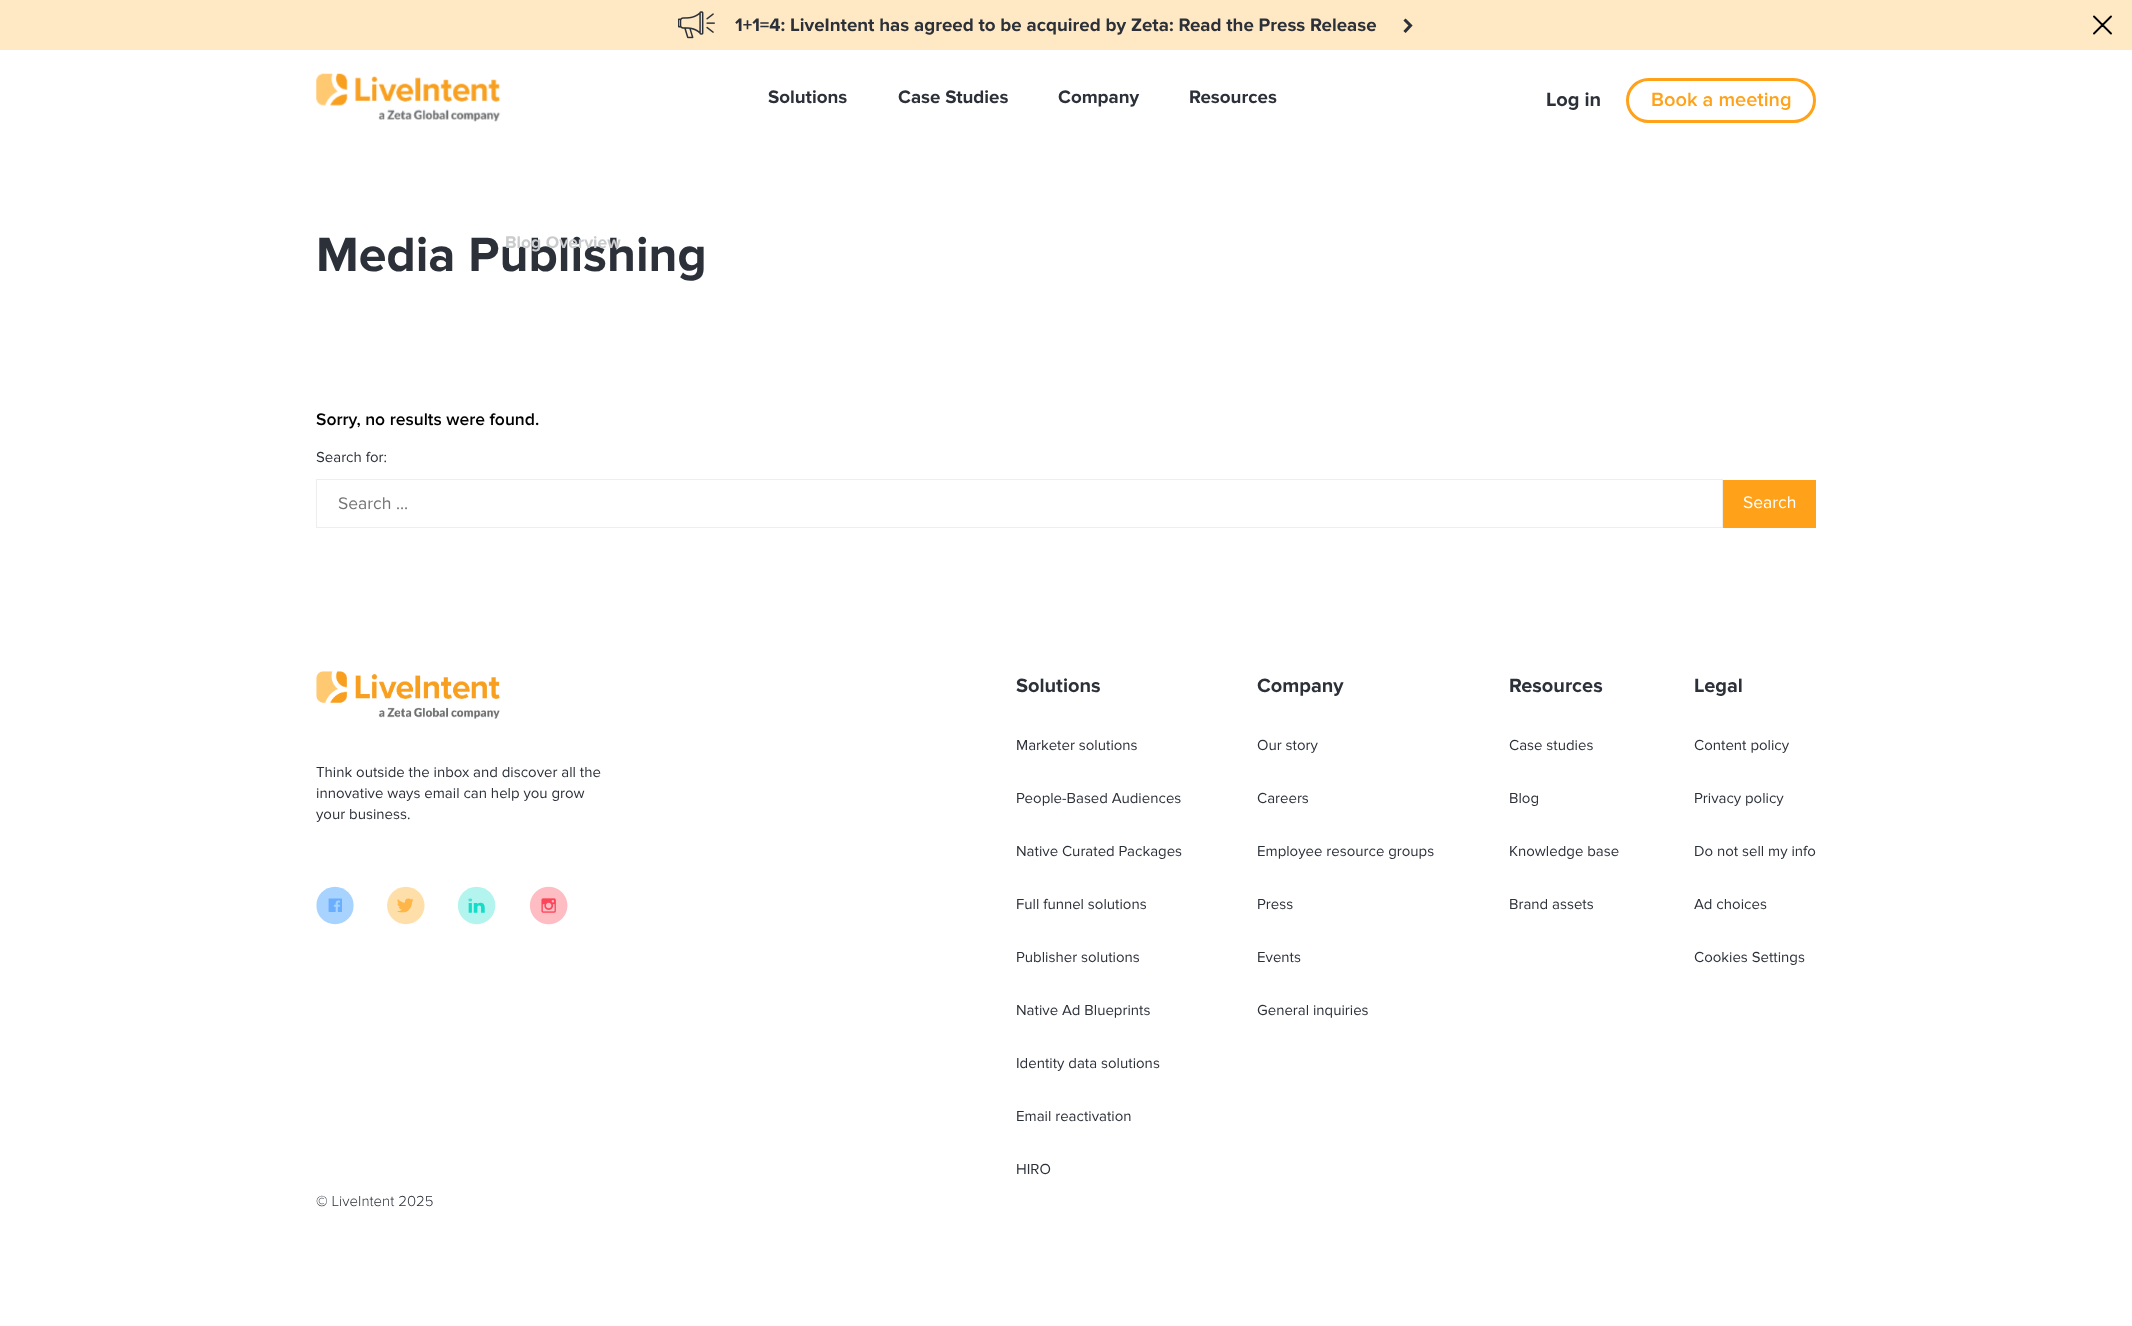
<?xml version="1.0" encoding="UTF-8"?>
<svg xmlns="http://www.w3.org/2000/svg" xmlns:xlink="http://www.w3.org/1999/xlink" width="2132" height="1326">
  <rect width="100%" height="100%" fill="#ffffff" />
  <rect width="2132" height="50" fill="#ffe9c5" />
  <image x="678" y="11" width="37" height="28" xlink:href="image1.png" />
  <path d="M 1404.5 19.5 l 6 6 l -6 6.5" fill="none" stroke="#2c3039" stroke-width="3.1" />
  <path d="M 2111 33.5 l -8.5 -8.5 m 0 0 l -8.5 -8.5 m 8.5 8.5 l 8.5 -8.5 m -8.5 8.5 l -8.5 8.5" fill="none" stroke="#000000" stroke-width="1.9" stroke-linecap="round" stroke-linejoin="round" />
  <image x="316" y="73" width="185" height="49" xlink:href="image2.png" />
  <rect x="1627.5" y="79.5" width="187" height="42" rx="21" fill="none" stroke="#ffa119" stroke-width="3" />
  <rect x="316.5" y="479.5" width="1406" height="48" fill="none" stroke="#eeeeee" />
  <rect x="1723" y="480" width="93" height="48" fill="#ffa119" />
  <image x="316" y="671" width="184" height="48" xlink:href="image3.png" />
  <image x="316" y="886" width="38" height="39" xlink:href="image4.png" />
  <image x="387" y="886" width="38" height="39" xlink:href="image5.png" />
  <image x="457" y="886" width="39" height="39" xlink:href="image6.png" />
  <image x="529" y="886" width="39" height="39" xlink:href="image7.png" />
  <text x="735" y="31" style="font-family: Proxima Nova; font-size: 18.75px; font-weight: bold; fill: #2c3039">1+1=4: LiveIntent has agreed to be acquired by Zeta: Read the Press Release</text>
  <text x="1189" y="103" style="font-family: Proxima Nova; font-size: 18.75px; font-weight: bold; fill: #2c3039">Resources</text>
  <text x="768" y="103" style="font-family: Proxima Nova; font-size: 18.75px; font-weight: bold; fill: #2c3039">Solutions</text>
  <text x="898" y="103" style="font-family: Proxima Nova; font-size: 18.75px; font-weight: bold; fill: #2c3039">Case Studies</text>
  <text x="1058" y="103" style="font-family: Proxima Nova; font-size: 18.75px; font-weight: bold; fill: #2c3039">Company</text>
  <text x="1546" y="106" style="font-family: Proxima Nova; font-size: 20px; font-weight: bold; fill: #2c3039">Log in</text>
  <text x="1651" y="106" style="font-family: Proxima Nova; font-size: 20px; font-weight: 600; fill: #ffa119">Book a meeting</text>
  <text x="316" y="271" style="font-family: Proxima Nova; font-size: 50px; font-weight: bold; fill: #2c3039">Media Publishing</text>
  <text x="505" y="248" style="font-family: Proxima Nova; font-size: 17.5px; font-weight: bold; fill: #cacbcd">Blog Overview</text>
  <text x="316" y="425" style="font-family: Proxima Nova; font-size: 17.5px; font-weight: 600; fill: #000000">Sorry, no results were found.</text>
  <rect x="455" y="374" width="40" height="40" rx="5" fill="#ffffff" />
  <text x="316" y="462" style="font-family: Proxima Nova; font-size: 15px; fill: #2c3039">Search for:</text>
  <text x="338" y="509" style="font-family: Proxima Nova; font-size: 17.5px; fill: #757575">Search …</text>
  <text x="1743" y="508" style="font-family: Proxima Nova; font-size: 17.5px; fill: #ffffff">Search</text>
  <text x="316" y="777" style="font-family: Proxima Nova; font-size: 15px; fill: #2c3039">Think outside the inbox and discover all the</text>
  <text x="316" y="798" style="font-family: Proxima Nova; font-size: 15px; fill: #2c3039">innovative ways email can help you grow</text>
  <text x="316" y="819" style="font-family: Proxima Nova; font-size: 15px; fill: #2c3039">your business.</text>
  <text x="1016" y="692" style="font-family: Proxima Nova; font-size: 20px; font-weight: bold; fill: #2c3039">Solutions</text>
  <text x="1016" y="750" style="font-family: Proxima Nova; font-size: 15px; fill: #2c3039">Marketer solutions</text>
  <text x="1016" y="803" style="font-family: Proxima Nova; font-size: 15px; fill: #2c3039">People-Based Audiences</text>
  <text x="1016" y="856" style="font-family: Proxima Nova; font-size: 15px; fill: #2c3039">Native Curated Packages</text>
  <text x="1016" y="909" style="font-family: Proxima Nova; font-size: 15px; fill: #2c3039">Full funnel solutions</text>
  <text x="1016" y="962" style="font-family: Proxima Nova; font-size: 15px; fill: #2c3039">Publisher solutions</text>
  <text x="1016" y="1015" style="font-family: Proxima Nova; font-size: 15px; fill: #2c3039">Native Ad Blueprints</text>
  <text x="1016" y="1068" style="font-family: Proxima Nova; font-size: 15px; fill: #2c3039">Identity data solutions</text>
  <text x="1016" y="1121" style="font-family: Proxima Nova; font-size: 15px; fill: #2c3039">Email reactivation</text>
  <text x="1016" y="1174" style="font-family: Proxima Nova; font-size: 15px; fill: #2c3039">HIRO</text>
  <text x="1257" y="692" style="font-family: Proxima Nova; font-size: 20px; font-weight: bold; fill: #2c3039">Company</text>
  <text x="1257" y="750" style="font-family: Proxima Nova; font-size: 15px; fill: #2c3039">Our story</text>
  <text x="1257" y="803" style="font-family: Proxima Nova; font-size: 15px; fill: #2c3039">Careers</text>
  <text x="1257" y="856" style="font-family: Proxima Nova; font-size: 15px; fill: #2c3039">Employee resource groups</text>
  <text x="1257" y="909" style="font-family: Proxima Nova; font-size: 15px; fill: #2c3039">Press</text>
  <text x="1257" y="962" style="font-family: Proxima Nova; font-size: 15px; fill: #2c3039">Events</text>
  <text x="1257" y="1015" style="font-family: Proxima Nova; font-size: 15px; fill: #2c3039">General inquiries</text>
  <text x="1509" y="692" style="font-family: Proxima Nova; font-size: 20px; font-weight: bold; fill: #2c3039">Resources</text>
  <text x="1509" y="750" style="font-family: Proxima Nova; font-size: 15px; fill: #2c3039">Case studies</text>
  <text x="1509" y="803" style="font-family: Proxima Nova; font-size: 15px; fill: #2c3039">Blog</text>
  <text x="1509" y="856" style="font-family: Proxima Nova; font-size: 15px; fill: #2c3039">Knowledge base</text>
  <text x="1509" y="909" style="font-family: Proxima Nova; font-size: 15px; fill: #2c3039">Brand assets</text>
  <text x="1694" y="692" style="font-family: Proxima Nova; font-size: 20px; font-weight: bold; fill: #2c3039">Legal</text>
  <text x="1694" y="750" style="font-family: Proxima Nova; font-size: 15px; fill: #2c3039">Content policy</text>
  <text x="1694" y="803" style="font-family: Proxima Nova; font-size: 15px; fill: #2c3039">Privacy policy</text>
  <text x="1694" y="856" style="font-family: Proxima Nova; font-size: 15px; fill: #2c3039">Do not sell my info</text>
  <text x="1694" y="909" style="font-family: Proxima Nova; font-size: 15px; fill: #2c3039">Ad choices</text>
  <text x="1694" y="962" style="font-family: Proxima Nova; font-size: 15px; fill: #2c3039">Cookies Settings</text>
  <text x="316" y="1206" style="font-family: Proxima Nova; font-size: 15px; font-weight: 300; fill: #2c3039">© LiveIntent 2025</text>
</svg>
